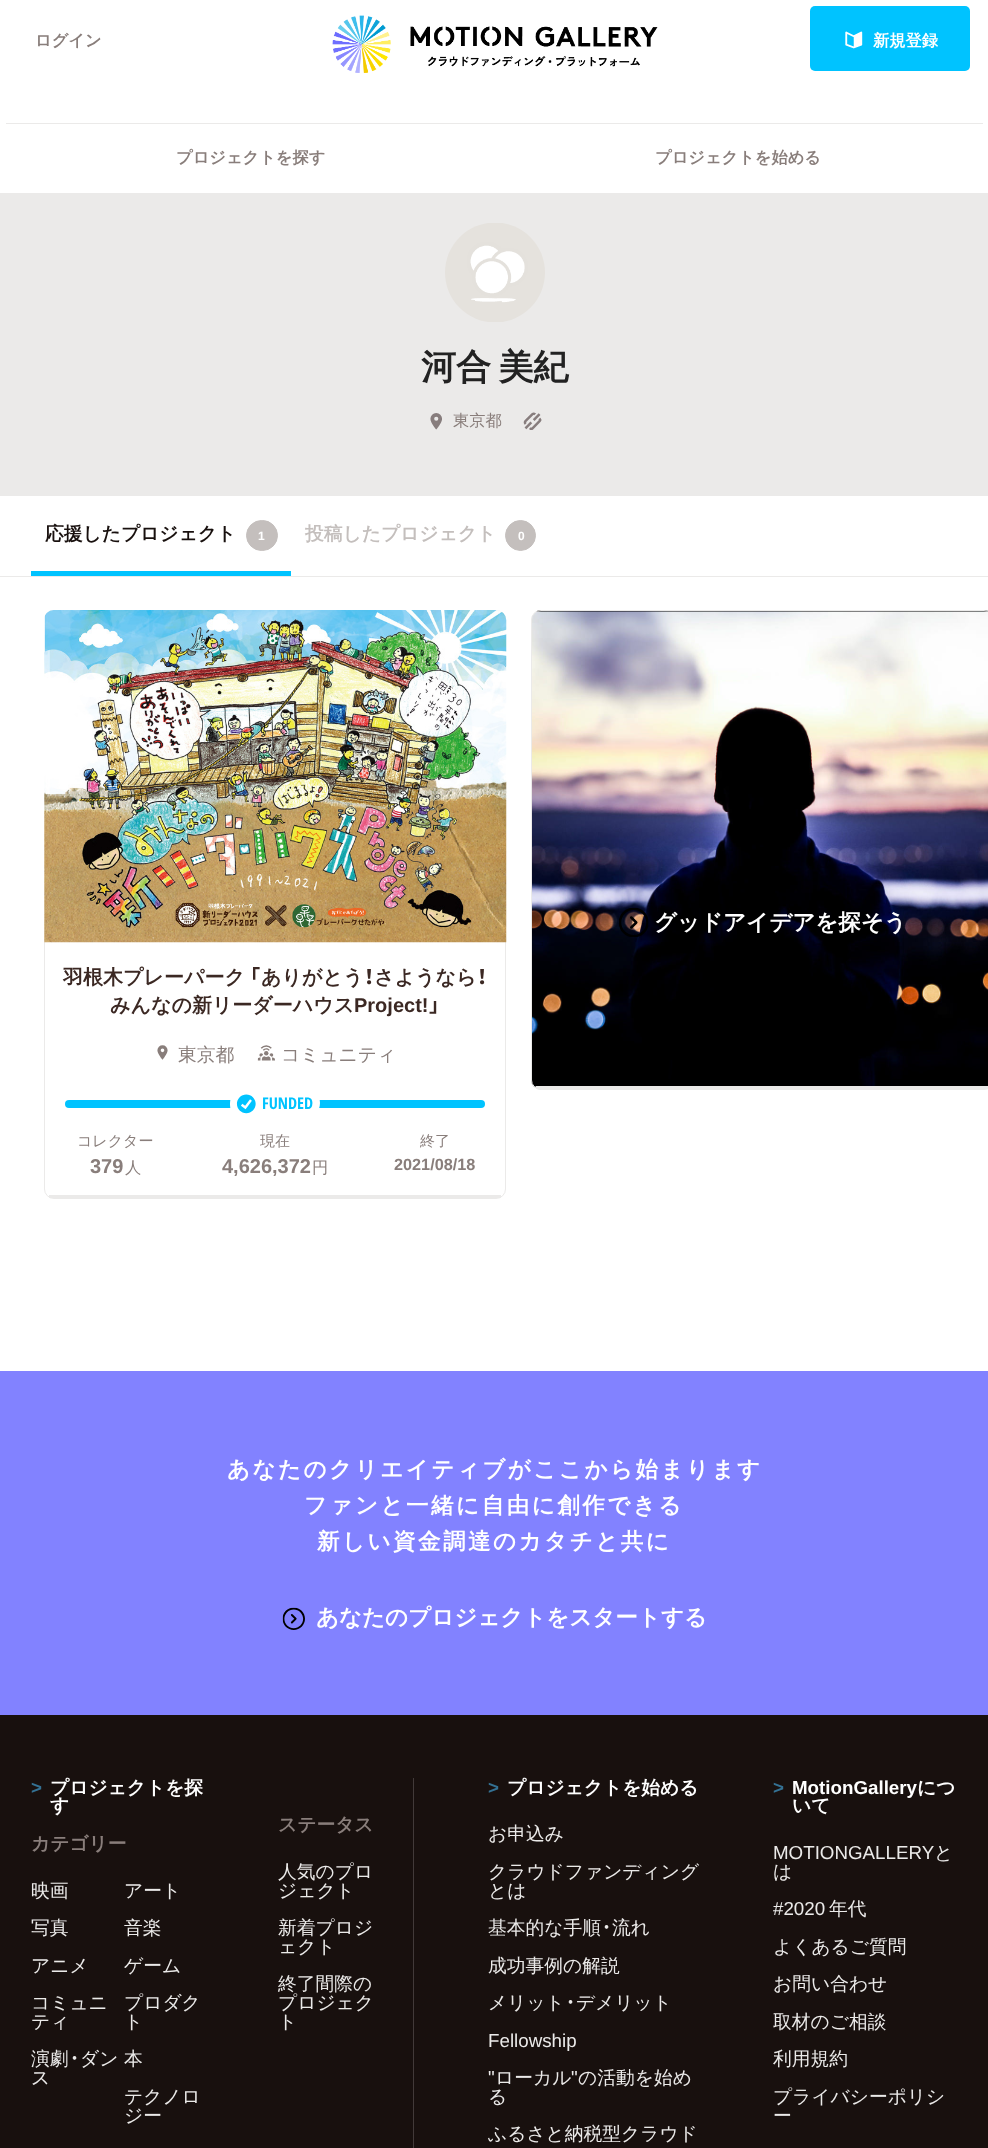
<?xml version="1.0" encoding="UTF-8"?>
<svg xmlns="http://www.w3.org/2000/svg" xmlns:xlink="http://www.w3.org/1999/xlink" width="988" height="2148">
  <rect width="100%" height="100%" fill="#ffffff" />
  <image x="332" y="15" width="326" height="58" xlink:href="image1.png" />
  <rect x="810" y="6" width="160" height="65" rx="5" fill="#00c3ff" />
  <image x="845" y="31" width="18" height="18" xlink:href="image2.png" />
  <rect x="6" y="123" width="977" height="1" fill="#ebeae9" />
  <rect y="193" width="988" height="303" fill="#ebeae9" />
  <image x="445" y="223" width="100" height="99" xlink:href="image3.png" />
  <image x="430" y="413" width="12" height="17" xlink:href="image4.png" />
  <image x="523" y="412" width="19" height="18" xlink:href="image5.png" />
  <rect y="576" width="988" height="1" fill="#ebeae9" />
  <rect x="31" y="571" width="260" height="5" fill="#00c3ff" />
  <rect x="246.5" y="520.5" width="31" height="30" rx="15" fill="#c4bfbd" stroke="#c4bfbd" />
  <circle cx="520.5" cy="535.5" r="15" fill="#c4bfbd" stroke="#c4bfbd" />
  <image x="531" y="610" width="457" height="480" xlink:href="image6.png" />
  <rect x="531.5" y="610.5" width="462" height="479" rx="9.5" fill="none" stroke="#ebeae9" />
  <rect x="536" y="1086" width="452" height="3" fill="#ebeae9" />
  <image x="619" y="907" width="30" height="30" xlink:href="image7.png" />
  <rect x="44.5" y="610.5" width="461" height="588" rx="9.5" fill="none" stroke="#ebeae9" />
  <rect x="49" y="1195" width="452" height="3" fill="#ebeae9" />
  <image x="44" y="610" width="463" height="333" xlink:href="image8.png" />
  <image x="157" y="1045" width="11" height="15" xlink:href="image9.png" />
  <image x="257" y="1045" width="18" height="16" xlink:href="image10.png" />
  <rect x="65" y="1100" width="420" height="8" rx="4" fill="#00c3ff" />
  <path d="M 244 1089 h 14 v 30 h -14 c -7.5 0 -14 -6.5 -14 -14 v -2 c 0 -7.5 6.5 -14 14 -14 z" fill="#ffffff" />
  <rect x="258" y="1100" width="4" height="16" fill="#ffffff" />
  <path d="M 261 1088 h 44 c 8.5 0 15 6.5 15 15 c 0 8.5 -6.5 15 -15 15 h -44 z" fill="#ffffff" />
  <image x="236" y="1094" width="20" height="20" xlink:href="image11.png" />
  <rect y="1715" width="988" height="433" fill="#18100e" />
  <rect y="1371" width="988" height="344" fill="#8282ff" />
  <image x="282" y="1607" width="23" height="23" xlink:href="image12.png" />
  <rect x="413" y="1778" width="1" height="370" fill="#423a39" />
  <text x="35" y="46" style="font-family: WenQuanYi Zen Hei; font-size: 16.25px; font-weight: bold; fill: #897e7b">ログイン</text>
  <text x="873" y="46" style="font-family: WenQuanYi Zen Hei; font-size: 16.25px; font-weight: bold; fill: #ffffff">新規登録</text>
  <text x="176" y="163" style="font-family: WenQuanYi Zen Hei; font-size: 16.25px; font-weight: bold; fill: #897e7b">プロジェクトを探す</text>
  <text x="655" y="163" style="font-family: WenQuanYi Zen Hei; font-size: 16.25px; font-weight: bold; fill: #897e7b">プロジェクトを始める</text>
  <text x="421" y="379" word-spacing="-3" style="font-family: WenQuanYi Zen Hei; font-size: 35px; font-weight: bold; fill: #222222">河合 美紀</text>
  <text x="453" y="426" style="font-family: WenQuanYi Zen Hei; font-size: 16.25px; font-weight: 500; fill: #897e7b">東京都</text>
  <text x="45" y="540" style="font-family: WenQuanYi Zen Hei; font-size: 18.75px; font-weight: bold; fill: #18100e">応援したプロジェクト</text>
  <text x="258" y="540" style="font-family: Liberation Sans; font-size: 12px; font-weight: bold; fill: #ffffff">1</text>
  <text x="305" y="540" style="font-family: WenQuanYi Zen Hei; font-size: 18.75px; font-weight: bold; fill: #c4bfbd">投稿したプロジェクト</text>
  <text x="518" y="540" style="font-family: Liberation Sans; font-size: 12px; font-weight: bold; fill: #ffffff">0</text>
  <text x="654" y="930" style="font-family: WenQuanYi Zen Hei; font-size: 22.5px; font-weight: bold; fill: #ffffff">グッドアイデアを探そう</text>
  <text x="63" y="984" style="font-family: WenQuanYi Zen Hei; font-size: 20px; font-weight: bold; fill: #3b2823">羽根木プレーパーク</text>
  <text x="249" y="984" style="font-family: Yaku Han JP; font-size: 20px; font-weight: bold; fill: #3b2823">「</text>
  <text x="261" y="984" style="font-family: WenQuanYi Zen Hei; font-size: 20px; font-weight: bold; fill: #3b2823">ありがとう</text>
  <text x="363" y="984" style="font-family: Yaku Han JP; font-size: 20px; font-weight: bold; fill: #3b2823">！</text>
  <text x="374" y="984" style="font-family: WenQuanYi Zen Hei; font-size: 20px; font-weight: bold; fill: #3b2823">さようなら</text>
  <text x="476" y="984" style="font-family: Yaku Han JP; font-size: 20px; font-weight: bold; fill: #3b2823">！</text>
  <text x="110" y="1012" style="font-family: WenQuanYi Zen Hei; font-size: 20px; font-weight: bold; fill: #3b2823">みんなの新リーダーハウス</text>
  <text x="354" y="1012" style="font-family: Liberation Sans; font-size: 20px; font-weight: bold; fill: #3b2823">Project!</text>
  <text x="429" y="1012" style="font-family: Yaku Han JP; font-size: 20px; font-weight: bold; fill: #3b2823">」</text>
  <text x="178" y="1061" style="font-family: WenQuanYi Zen Hei; font-size: 18.75px; font-weight: 500; fill: #897e7b">東京都</text>
  <text x="281" y="1061" style="font-family: WenQuanYi Zen Hei; font-size: 18.75px; font-weight: 500; fill: #897e7b">コミュニティ</text>
  <text x="262" y="1109" style="font-family: Open Sans Condensed; font-size: 16.25px; font-weight: bold; fill: #00c3ff">FUNDED</text>
  <text x="77" y="1146" style="font-family: WenQuanYi Zen Hei; font-size: 15px; font-weight: 500; fill: #897e7b">コレクター</text>
  <text x="90" y="1173" style="font-family: Liberation Sans; font-size: 20px; font-weight: bold; fill: #897e7b">379</text>
  <text x="125" y="1173" style="font-family: WenQuanYi Zen Hei; font-size: 16.25px; font-weight: 500; fill: #897e7b">人</text>
  <text x="260" y="1146" style="font-family: WenQuanYi Zen Hei; font-size: 15px; font-weight: 500; fill: #897e7b">現在</text>
  <text x="222" y="1173" style="font-family: Liberation Sans; font-size: 20px; font-weight: bold; fill: #897e7b">4,626,372</text>
  <text x="312" y="1173" style="font-family: WenQuanYi Zen Hei; font-size: 16.25px; font-weight: 500; fill: #897e7b">円</text>
  <text x="420" y="1146" style="font-family: WenQuanYi Zen Hei; font-size: 15px; font-weight: 500; fill: #897e7b">終了</text>
  <text x="394" y="1170" style="font-family: Liberation Sans; font-size: 16.25px; font-weight: bold; fill: #897e7b">2021/08/18</text>
  <text x="227" y="1477" style="font-family: WenQuanYi Zen Hei; font-size: 22.5px; font-weight: bold; letter-spacing: 2.5px; fill: #ffffff">あなたのクリエイティブがここから始まります</text>
  <text x="304" y="1513" style="font-family: WenQuanYi Zen Hei; font-size: 22.5px; font-weight: bold; letter-spacing: 2.5px; fill: #ffffff">ファンと一緒に自由に創作できる</text>
  <text x="317" y="1549" style="font-family: WenQuanYi Zen Hei; font-size: 22.5px; font-weight: bold; letter-spacing: 2.5px; fill: #ffffff">新しい資金調達のカタチと共に</text>
  <text x="316" y="1625" style="font-family: WenQuanYi Zen Hei; font-size: 22.5px; font-weight: bold; fill: #ffffff">あなたのプロジェクトをスタートする</text>
  <text x="31" y="1794" style="font-family: Liberation Sans; font-size: 18.75px; font-weight: bold; fill: #347193">&gt;</text>
  <text x="50" y="1794" style="font-family: WenQuanYi Zen Hei; font-size: 18.75px; font-weight: bold; fill: #ffffff">プロジェクトを探</text>
  <text x="50" y="1812" style="font-family: WenQuanYi Zen Hei; font-size: 18.75px; font-weight: bold; fill: #ffffff">す</text>
  <text x="31" y="1850" style="font-family: WenQuanYi Zen Hei; font-size: 18.75px; font-weight: bold; fill: #897e7b">カテゴリー</text>
  <text x="31" y="1897" style="font-family: WenQuanYi Zen Hei; font-size: 18.75px; font-weight: 500; fill: #ebeae9">映画</text>
  <text x="124" y="1897" style="font-family: WenQuanYi Zen Hei; font-size: 18.75px; font-weight: 500; fill: #ebeae9">アート</text>
  <text x="31" y="1934" style="font-family: WenQuanYi Zen Hei; font-size: 18.75px; font-weight: 500; fill: #ebeae9">写真</text>
  <text x="124" y="1934" style="font-family: WenQuanYi Zen Hei; font-size: 18.75px; font-weight: 500; fill: #ebeae9">音楽</text>
  <text x="31" y="1972" style="font-family: WenQuanYi Zen Hei; font-size: 18.75px; font-weight: 500; fill: #ebeae9">アニメ</text>
  <text x="124" y="1972" style="font-family: WenQuanYi Zen Hei; font-size: 18.75px; font-weight: 500; fill: #ebeae9">ゲーム</text>
  <text x="31" y="2009" style="font-family: WenQuanYi Zen Hei; font-size: 18.75px; font-weight: 500; fill: #ebeae9">コミュニ</text>
  <text x="31" y="2028" style="font-family: WenQuanYi Zen Hei; font-size: 18.75px; font-weight: 500; fill: #ebeae9">ティ</text>
  <text x="124" y="2009" style="font-family: WenQuanYi Zen Hei; font-size: 18.75px; font-weight: 500; fill: #ebeae9">プロダク</text>
  <text x="124" y="2028" style="font-family: WenQuanYi Zen Hei; font-size: 18.75px; font-weight: 500; fill: #ebeae9">ト</text>
  <text x="31" y="2065" style="font-family: WenQuanYi Zen Hei; font-size: 18.75px; font-weight: 500; fill: #ebeae9">演劇</text>
  <text x="69" y="2065" style="font-family: Yaku Han JP; font-size: 18.75px; font-weight: 300; fill: #ebeae9">・</text>
  <text x="80" y="2065" style="font-family: WenQuanYi Zen Hei; font-size: 18.75px; font-weight: 500; fill: #ebeae9">ダン 本</text>
  <text x="31" y="2084" style="font-family: WenQuanYi Zen Hei; font-size: 18.75px; font-weight: 500; fill: #ebeae9">ス</text>
  <text x="124" y="2103" style="font-family: WenQuanYi Zen Hei; font-size: 18.75px; font-weight: 500; fill: #ebeae9">テクノロ</text>
  <text x="124" y="2122" style="font-family: WenQuanYi Zen Hei; font-size: 18.75px; font-weight: 500; fill: #ebeae9">ジー</text>
  <text x="278" y="1831" style="font-family: WenQuanYi Zen Hei; font-size: 18.75px; font-weight: bold; fill: #897e7b">ステータス</text>
  <text x="278" y="1878" style="font-family: WenQuanYi Zen Hei; font-size: 18.75px; font-weight: 500; fill: #ebeae9">人気のプロ</text>
  <text x="278" y="1897" style="font-family: WenQuanYi Zen Hei; font-size: 18.75px; font-weight: 500; fill: #ebeae9">ジェクト</text>
  <text x="278" y="1934" style="font-family: WenQuanYi Zen Hei; font-size: 18.75px; font-weight: 500; fill: #ebeae9">新着プロジ</text>
  <text x="278" y="1953" style="font-family: WenQuanYi Zen Hei; font-size: 18.75px; font-weight: 500; fill: #ebeae9">ェクト</text>
  <text x="278" y="1990" style="font-family: WenQuanYi Zen Hei; font-size: 18.75px; font-weight: 500; fill: #ebeae9">終了間際の</text>
  <text x="278" y="2009" style="font-family: WenQuanYi Zen Hei; font-size: 18.75px; font-weight: 500; fill: #ebeae9">プロジェク</text>
  <text x="278" y="2028" style="font-family: WenQuanYi Zen Hei; font-size: 18.75px; font-weight: 500; fill: #ebeae9">ト</text>
  <text x="488" y="1794" style="font-family: Liberation Sans; font-size: 18.75px; font-weight: bold; fill: #347193">&gt;</text>
  <text x="507" y="1794" style="font-family: WenQuanYi Zen Hei; font-size: 18.75px; font-weight: bold; fill: #ffffff">プロジェクトを始める</text>
  <text x="488" y="1840" style="font-family: WenQuanYi Zen Hei; font-size: 18.75px; font-weight: 500; fill: #ebeae9">お申込み</text>
  <text x="488" y="1878" style="font-family: WenQuanYi Zen Hei; font-size: 18.75px; font-weight: 500; fill: #ebeae9">クラウドファンディング</text>
  <text x="488" y="1897" style="font-family: WenQuanYi Zen Hei; font-size: 18.75px; font-weight: 500; fill: #ebeae9">とは</text>
  <text x="488" y="1934" style="font-family: WenQuanYi Zen Hei; font-size: 18.75px; font-weight: 500; fill: #ebeae9">基本的な手順</text>
  <text x="601" y="1934" style="font-family: Yaku Han JP; font-size: 18.75px; font-weight: 300; fill: #ebeae9">・</text>
  <text x="612" y="1934" style="font-family: WenQuanYi Zen Hei; font-size: 18.75px; font-weight: 500; fill: #ebeae9">流れ</text>
  <text x="488" y="1972" style="font-family: WenQuanYi Zen Hei; font-size: 18.75px; font-weight: 500; fill: #ebeae9">成功事例の解説</text>
  <text x="488" y="2009" style="font-family: WenQuanYi Zen Hei; font-size: 18.75px; font-weight: 500; fill: #ebeae9">メリット</text>
  <text x="565" y="2009" style="font-family: Yaku Han JP; font-size: 18.75px; font-weight: 300; fill: #ebeae9">・</text>
  <text x="576" y="2009" style="font-family: WenQuanYi Zen Hei; font-size: 18.75px; font-weight: 500; fill: #ebeae9">デメリット</text>
  <text x="488" y="2047" style="font-family: Liberation Sans; font-size: 18.75px; fill: #ebeae9">Fellowship</text>
  <text x="488" y="2084" style="font-family: Liberation Sans; font-size: 18.75px; fill: #ebeae9">"</text>
  <text x="495" y="2084" style="font-family: WenQuanYi Zen Hei; font-size: 18.75px; font-weight: 500; fill: #ebeae9">ローカル</text>
  <text x="571" y="2084" style="font-family: Liberation Sans; font-size: 18.75px; fill: #ebeae9">"</text>
  <text x="578" y="2084" style="font-family: WenQuanYi Zen Hei; font-size: 18.75px; font-weight: 500; fill: #ebeae9">の活動を始め</text>
  <text x="488" y="2103" style="font-family: WenQuanYi Zen Hei; font-size: 18.75px; font-weight: 500; fill: #ebeae9">る</text>
  <text x="488" y="2140" style="font-family: WenQuanYi Zen Hei; font-size: 18.75px; font-weight: 500; fill: #ebeae9">ふるさと納税型クラウド</text>
  <text x="773" y="1794" style="font-family: Liberation Sans; font-size: 18.75px; font-weight: bold; fill: #347193">&gt;</text>
  <text x="792" y="1794" style="font-family: Liberation Sans; font-size: 18.75px; font-weight: bold; fill: #ffffff">MotionGallery</text>
  <text x="917" y="1794" style="font-family: WenQuanYi Zen Hei; font-size: 18.75px; font-weight: bold; fill: #ffffff">につ</text>
  <text x="792" y="1812" style="font-family: WenQuanYi Zen Hei; font-size: 18.75px; font-weight: bold; fill: #ffffff">いて</text>
  <text x="773" y="1859" style="font-family: Liberation Sans; font-size: 18.75px; fill: #ebeae9">MOTIONGALLERY</text>
  <text x="934" y="1859" style="font-family: WenQuanYi Zen Hei; font-size: 18.75px; font-weight: 500; fill: #ebeae9">と</text>
  <text x="773" y="1878" style="font-family: WenQuanYi Zen Hei; font-size: 18.75px; font-weight: 500; fill: #ebeae9">は</text>
  <text x="773" y="1915" style="font-family: Liberation Sans; font-size: 18.75px; fill: #ebeae9">#2020</text>
  <text x="829" y="1915" style="font-family: WenQuanYi Zen Hei; font-size: 18.75px; font-weight: 500; fill: #ebeae9">年代</text>
  <text x="773" y="1953" style="font-family: WenQuanYi Zen Hei; font-size: 18.75px; font-weight: 500; fill: #ebeae9">よくあるご質問</text>
  <text x="773" y="1990" style="font-family: WenQuanYi Zen Hei; font-size: 18.75px; font-weight: 500; fill: #ebeae9">お問い合わせ</text>
  <text x="773" y="2028" style="font-family: WenQuanYi Zen Hei; font-size: 18.75px; font-weight: 500; fill: #ebeae9">取材のご相談</text>
  <text x="773" y="2065" style="font-family: WenQuanYi Zen Hei; font-size: 18.75px; font-weight: 500; fill: #ebeae9">利用規約</text>
  <text x="773" y="2103" style="font-family: WenQuanYi Zen Hei; font-size: 18.75px; font-weight: 500; fill: #ebeae9">プライバシーポリシ</text>
  <text x="773" y="2122" style="font-family: WenQuanYi Zen Hei; font-size: 18.75px; font-weight: 500; fill: #ebeae9">ー</text>
</svg>
